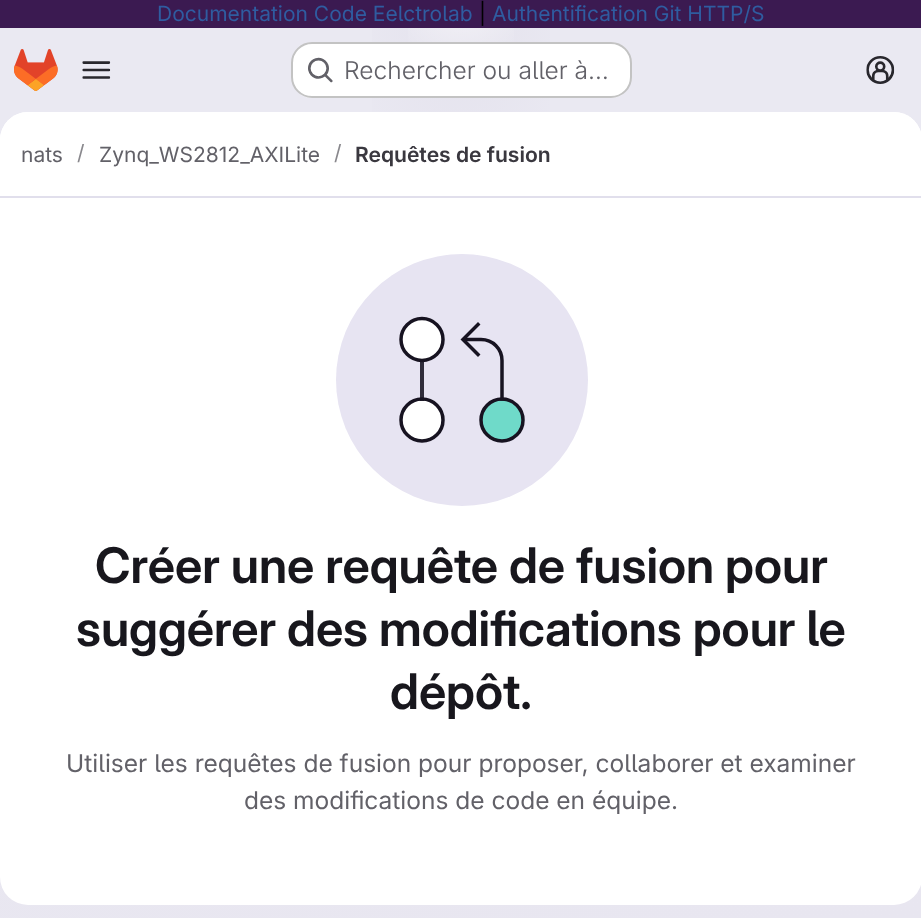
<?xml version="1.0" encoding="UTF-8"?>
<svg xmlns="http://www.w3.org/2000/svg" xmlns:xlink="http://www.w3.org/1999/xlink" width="921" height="918">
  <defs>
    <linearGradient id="g1" gradientUnits="userSpaceOnUse" x1="554" y1="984" x2="369" y2="-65"><stop offset="0" stop-color="#e8e6f0" /><stop offset="0.7" stop-color="#eae9f2" /></linearGradient>
    <radialGradient id="g2" gradientUnits="userSpaceOnUse" cx="0" cy="0" r="1" gradientTransform="matrix(461 0 0 919 461 0)"><stop offset="0" stop-color="#e4e2ed" /><stop offset="0.27" stop-color="#e4e2ed" stop-opacity="0" /></radialGradient>
    <radialGradient id="g3" gradientUnits="userSpaceOnUse" cx="0" cy="0" r="1" gradientTransform="matrix(461 0 0 919 461 0)"><stop offset="0" stop-color="#e4e2ec" /><stop offset="0.19" stop-color="#e4e2ec" stop-opacity="0" /></radialGradient>
    <radialGradient id="g4" gradientUnits="userSpaceOnUse" cx="461" cy="0" r="1028"><stop offset="0" stop-color="#ffffff" stop-opacity="0.6" /><stop offset="0.07" stop-color="#ffffff" stop-opacity="0" /></radialGradient>
  </defs>
  <rect width="100%" height="100%" fill="#ffffff" />
  <rect y="28" width="921" height="890" fill="url(#g1)" />
  <rect x="372" y="28" width="178" height="84" fill="url(#g2)" />
  <rect x="439" y="43" width="44" height="27" fill="url(#g3)" />
  <rect x="408" y="28" width="106" height="14" fill="url(#g4)" />
  <rect width="921" height="28" fill="#3b1a51" />
  <image x="14" y="49" width="44" height="42" xlink:href="image1.png" />
  <image x="82" y="61" width="29" height="18" xlink:href="image2.png" />
  <rect x="291" y="42" width="341" height="56" rx="21" fill="#ffffff" />
  <rect x="292" y="43" width="339" height="54" rx="20" fill="none" stroke="#050506" stroke-opacity="0.24" stroke-width="2" />
  <image x="308" y="57" width="25" height="26" xlink:href="image3.png" />
  <image x="866" y="56" width="29" height="28" xlink:href="image4.png" />
  <rect y="112" width="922" height="793" rx="28" fill="#ffffff" />
  <path d="M 28 112 h 866 c 15.5 0 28 12.5 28 28 v 58 h -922 v -58 c 0 -15.5 12.5 -28 28 -28 z" fill="#ffffff" />
  <rect y="196" width="921" height="2" fill="#e1dfec" />
  <circle cx="462" cy="380" r="126" fill="#e7e4f2" />
  <circle cx="422" cy="420" r="21" fill="#ffffff" stroke="#171321" stroke-width="3.5" />
  <rect x="420" y="359" width="4" height="42" fill="#171321" fill-opacity="0.88" />
  <circle cx="422" cy="339.5" r="21" fill="#ffffff" stroke="#171321" stroke-width="3.5" />
  <circle cx="502" cy="420" r="21" fill="#6fdac9" stroke="#171321" stroke-width="3.5" />
  <path d="M 502 399 v -38.5 c 0 -11.5 -9 -21 -21 -21 h -15.5" fill="none" stroke="#171321" stroke-width="3.5" stroke-linecap="square" />
  <path d="M 478 324.5 l -15 15 l 15 15" fill="none" stroke="#171321" stroke-width="3.5" stroke-linecap="square" />
  <text x="157" y="21" style="font-family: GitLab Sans; font-size: 21px; fill: #2f5ca0">Documentation Code Eelctrolab</text>
  <text x="479" y="21" style="font-family: GitLab Sans; font-size: 21px; fill: #000000">|</text>
  <text x="492" y="21" style="font-family: GitLab Sans; font-size: 21px; fill: #2f5ca0">Authentification Git HTTP/S</text>
  <text x="344" y="79" style="font-family: GitLab Sans; font-size: 24.5px; font-weight: 300; fill: #626168">Rechercher ou aller à…</text>
  <text x="21" y="162" style="font-family: GitLab Sans; font-size: 21px; fill: #626168">nats</text>
  <text x="77" y="160" style="font-family: GitLab Sans; font-size: 21px; fill: #89888d">/</text>
  <text x="99" y="162" style="font-family: GitLab Sans; font-size: 21px; fill: #626168">Zynq_WS2812_AXILite</text>
  <text x="334" y="160" style="font-family: GitLab Sans; font-size: 21px; fill: #89888d">/</text>
  <text x="355" y="162" style="font-family: 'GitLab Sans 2'; font-size: 21px; font-weight: 600; fill: #3a383f">Requêtes de fusion</text>
  <text x="95" y="583" style="font-family: GitLab Sans; font-size: 49px; font-weight: 600; fill: #18171d">Créer une requête de fusion pour</text>
  <text x="76" y="646" style="font-family: GitLab Sans; font-size: 49px; font-weight: 600; fill: #18171d">suggérer des modifications pour le</text>
  <text x="390" y="709" style="font-family: GitLab Sans; font-size: 49px; font-weight: 600; fill: #18171d">dépôt.</text>
  <text x="66" y="772" style="font-family: GitLab Sans; font-size: 24.5px; fill: #626168">Utiliser les requêtes de fusion pour proposer, collaborer et examiner</text>
  <text x="244" y="809" style="font-family: GitLab Sans; font-size: 24.5px; fill: #626168">des modifications de code en équipe.</text>
</svg>
